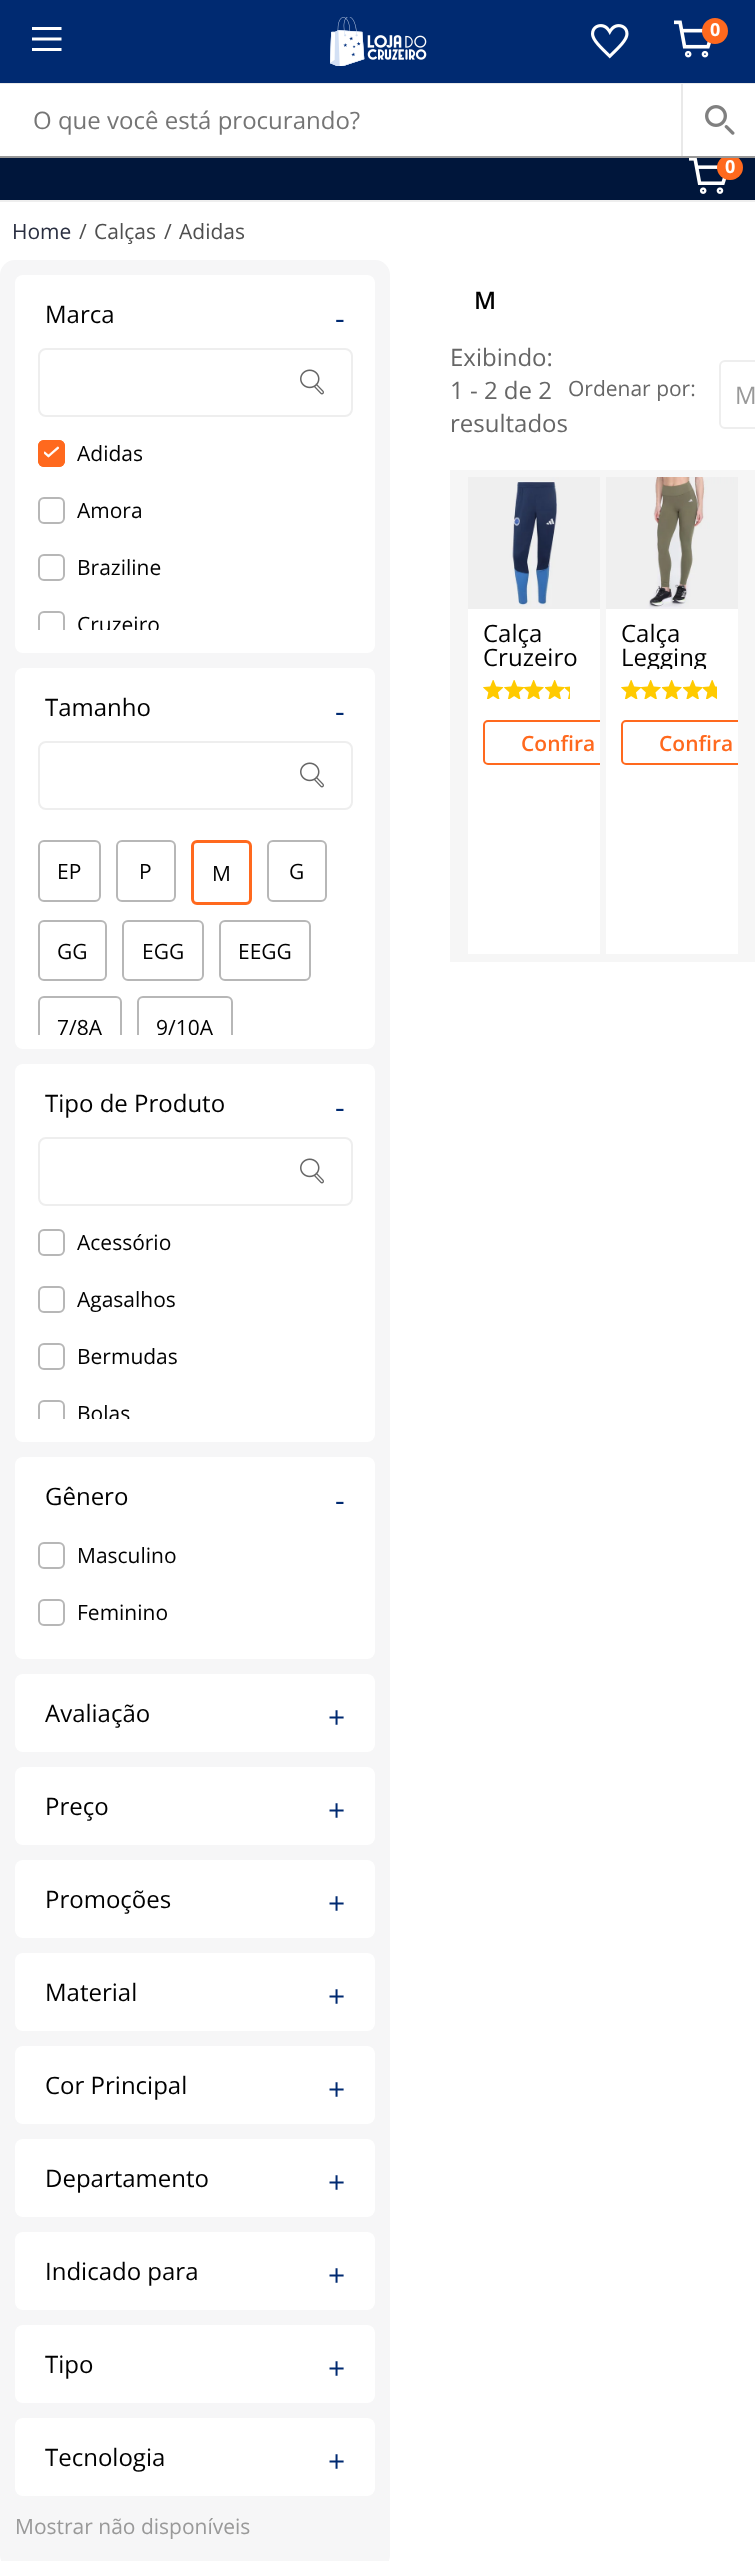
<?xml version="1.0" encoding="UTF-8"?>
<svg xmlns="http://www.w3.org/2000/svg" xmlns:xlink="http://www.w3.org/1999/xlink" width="755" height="2561">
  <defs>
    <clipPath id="clip1"><rect x="38" y="435" width="315" height="195" /></clipPath>
    <clipPath id="clip2"><rect x="38" y="840" width="315" height="195" /></clipPath>
    <clipPath id="clip3"><rect x="38" y="1224" width="315" height="195" /></clipPath>
    <clipPath id="clip4"><rect x="468" y="477" width="132" height="477" /></clipPath>
    <clipPath id="clip5"><rect x="606" y="477" width="132" height="477" /></clipPath>
    <clipPath id="clip6"><rect x="621" y="621" width="102" height="48" /></clipPath>
  </defs>
  <rect width="100%" height="100%" fill="#ffffff" />
  <rect width="755" height="83" fill="#002a71" />
  <image x="32" y="27" width="30" height="24" xlink:href="image1.png" />
  <image x="330" y="17" width="97" height="49" xlink:href="image2.png" />
  <image x="591" y="24" width="38" height="35" xlink:href="image3.png" />
  <image x="674" y="20" width="37" height="38" xlink:href="image4.png" />
  <circle cx="715" cy="31" r="13" fill="#ff691e" />
  <rect y="83" width="755" height="1" fill="#e9e9e9" />
  <rect y="158" width="755" height="42" fill="#00163b" />
  <image x="689" y="158" width="38" height="36" xlink:href="image6.png" />
  <rect x="717" y="155" width="26" height="25" rx="12.5" fill="#ff691e" />
  <rect y="156" width="755" height="2" fill="#989898" />
  <rect x="724" y="155" width="12" height="1" fill="#ffffff" />
  <rect x="681" y="84" width="2" height="72" fill="#e9e9e9" />
  <image x="705" y="105" width="30" height="30" xlink:href="image5.png" />
  <rect y="200" width="755" height="2" fill="#eeeeee" />
  <rect y="260" width="390" height="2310" rx="15" fill="#f6f6f7" />
  <rect x="15" y="275" width="360" height="378" rx="8" fill="#ffffff" />
  <rect x="39" y="349" width="313" height="67" rx="7" fill="none" stroke="#eeeeee" stroke-width="2" />
  <image x="300" y="369" width="24" height="26" xlink:href="image7.png" />
  <rect x="38" y="440" width="27" height="27" rx="6" fill="#ff691e" />
  <image x="44" y="446" width="15" height="12" xlink:href="image8.png" />
  <rect x="39" y="441" width="25" height="25" rx="5" fill="none" stroke="#ff691e" stroke-width="2" />
  <rect x="39" y="498" width="25" height="25" rx="5" fill="none" stroke="#b7b7b7" stroke-width="2" />
  <rect x="39" y="555" width="25" height="25" rx="5" fill="none" stroke="#b7b7b7" stroke-width="2" />
  <g clip-path="url(#clip1)">
    <rect x="39" y="612" width="25" height="25" rx="5" fill="none" stroke="#b7b7b7" stroke-width="2" />
  </g>
  <rect x="15" y="668" width="360" height="381" rx="8" fill="#ffffff" />
  <rect x="39" y="742" width="313" height="67" rx="7" fill="none" stroke="#eeeeee" stroke-width="2" />
  <image x="300" y="762" width="24" height="26" xlink:href="image7.png" />
  <rect x="39" y="841" width="61" height="60" rx="5" fill="none" stroke="#b7b7b7" stroke-width="2" />
  <rect x="117" y="841" width="58" height="60" rx="5" fill="none" stroke="#b7b7b7" stroke-width="2" />
  <rect x="192.5" y="841.5" width="58" height="62" rx="4.5" fill="none" stroke="#ff691e" stroke-width="3" />
  <rect x="268" y="841" width="58" height="60" rx="5" fill="none" stroke="#b7b7b7" stroke-width="2" />
  <rect x="39" y="921" width="67" height="59" rx="5" fill="none" stroke="#b7b7b7" stroke-width="2" />
  <rect x="123" y="921" width="80" height="59" rx="5" fill="none" stroke="#b7b7b7" stroke-width="2" />
  <rect x="220" y="921" width="90" height="59" rx="5" fill="none" stroke="#b7b7b7" stroke-width="2" />
  <g clip-path="url(#clip2)">
    <rect x="39" y="997" width="82" height="60" rx="5" fill="none" stroke="#b7b7b7" stroke-width="2" />
    <rect x="138" y="997" width="94" height="60" rx="5" fill="none" stroke="#b7b7b7" stroke-width="2" />
  </g>
  <rect x="15" y="1064" width="360" height="378" rx="8" fill="#ffffff" />
  <rect x="39" y="1138" width="313" height="67" rx="7" fill="none" stroke="#eeeeee" stroke-width="2" />
  <image x="300" y="1158" width="24" height="26" xlink:href="image7.png" />
  <rect x="39" y="1230" width="25" height="25" rx="5" fill="none" stroke="#b7b7b7" stroke-width="2" />
  <rect x="39" y="1287" width="25" height="25" rx="5" fill="none" stroke="#b7b7b7" stroke-width="2" />
  <rect x="39" y="1344" width="25" height="25" rx="5" fill="none" stroke="#b7b7b7" stroke-width="2" />
  <g clip-path="url(#clip3)">
    <rect x="39" y="1401" width="25" height="25" rx="5" fill="none" stroke="#b7b7b7" stroke-width="2" />
  </g>
  <rect x="15" y="1457" width="360" height="202" rx="8" fill="#ffffff" />
  <rect x="39" y="1543" width="25" height="25" rx="5" fill="none" stroke="#b7b7b7" stroke-width="2" />
  <rect x="39" y="1600" width="25" height="25" rx="5" fill="none" stroke="#b7b7b7" stroke-width="2" />
  <rect x="15" y="1674" width="360" height="78" rx="8" fill="#ffffff" />
  <rect x="15" y="1767" width="360" height="78" rx="8" fill="#ffffff" />
  <rect x="15" y="1860" width="360" height="78" rx="8" fill="#ffffff" />
  <rect x="15" y="1953" width="360" height="78" rx="8" fill="#ffffff" />
  <rect x="15" y="2046" width="360" height="78" rx="8" fill="#ffffff" />
  <rect x="15" y="2139" width="360" height="78" rx="8" fill="#ffffff" />
  <rect x="15" y="2232" width="360" height="78" rx="8" fill="#ffffff" />
  <rect x="15" y="2325" width="360" height="78" rx="8" fill="#ffffff" />
  <rect x="15" y="2418" width="360" height="78" rx="8" fill="#ffffff" />
  <rect x="720" y="361" width="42" height="67" rx="5" fill="none" stroke="#eeeeee" stroke-width="2" />
  <rect x="450" y="470" width="305" height="492" fill="#f6f6f6" />
  <rect x="468" y="609" width="132" height="345" fill="#ffffff" />
  <image x="468" y="477" width="132" height="132" xlink:href="image9.png" />
  <image x="483" y="680" width="21" height="19" xlink:href="image10.png" />
  <image x="504" y="680" width="20" height="19" xlink:href="image11.png" />
  <image x="524" y="680" width="20" height="19" xlink:href="image12.png" />
  <image x="545" y="680" width="19" height="19" xlink:href="image13.png" />
  <image x="564" y="686" width="6" height="13" xlink:href="image14.png" />
  <g clip-path="url(#clip4)">
    <rect x="484" y="721" width="148" height="43" rx="4" fill="none" stroke="#ff691e" stroke-width="2" />
  </g>
  <rect x="606" y="609" width="132" height="345" fill="#ffffff" />
  <image x="606" y="477" width="132" height="132" xlink:href="image15.png" />
  <image x="621" y="680" width="20" height="19" xlink:href="image11.png" />
  <image x="641" y="680" width="20" height="19" xlink:href="image12.png" />
  <image x="662" y="680" width="20" height="19" xlink:href="image12.png" />
  <image x="683" y="680" width="19" height="19" xlink:href="image13.png" />
  <image x="702" y="680" width="15" height="19" xlink:href="image16.png" />
  <g clip-path="url(#clip5)">
    <rect x="622" y="721" width="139" height="43" rx="4" fill="none" stroke="#ff691e" stroke-width="2" />
  </g>
  <text x="710" y="36" style="font-family: Open Sans; font-size: 18px; font-weight: bold; fill: #ffffff">0</text>
  <text x="33" y="129" style="font-family: Open Sans; font-size: 24px; fill: #757575">O que você está procurando?</text>
  <text x="725" y="173" style="font-family: Open Sans; font-size: 18px; font-weight: bold; fill: #ffffff">0</text>
  <text x="12" y="239" style="font-family: Open Sans; font-size: 21px; fill: #2a2f41">Home</text>
  <text x="79" y="239" style="font-family: Open Sans; font-size: 21px; fill: #4f4f4f">/</text>
  <text x="94" y="239" style="font-family: Open Sans; font-size: 21px; fill: #4f4f4f">Calças</text>
  <text x="164" y="239" style="font-family: Open Sans; font-size: 21px; fill: #4f4f4f">/</text>
  <text x="179" y="239" style="font-family: Open Sans; font-size: 21px; fill: #4f4f4f">Adidas</text>
  <text x="45" y="323" style="font-family: Open Sans; font-size: 24px; fill: #000000">Marca</text>
  <text x="335" y="329" style="font-family: Open Sans; font-size: 30px; fill: #002a71">-</text>
  <text x="77" y="461" style="font-family: Open Sans; font-size: 21px; fill: #000000">Adidas</text>
  <text x="77" y="518" style="font-family: Open Sans; font-size: 21px; fill: #000000">Amora</text>
  <text x="77" y="575" style="font-family: Open Sans; font-size: 21px; fill: #000000">Braziline</text>
  <g clip-path="url(#clip1)">
    <text x="77" y="632" style="font-family: Open Sans; font-size: 21px; fill: #000000">Cruzeiro</text>
  </g>
  <text x="45" y="716" style="font-family: Open Sans; font-size: 24px; fill: #000000">Tamanho</text>
  <text x="335" y="722" style="font-family: Open Sans; font-size: 30px; fill: #002a71">-</text>
  <text x="57" y="879" style="font-family: Open Sans; font-size: 21px; fill: #000000">EP</text>
  <text x="139" y="879" style="font-family: Open Sans; font-size: 21px; fill: #000000">P</text>
  <text x="212" y="881" style="font-family: Open Sans; font-size: 21px; fill: #000000">M</text>
  <text x="289" y="879" style="font-family: Open Sans; font-size: 21px; fill: #000000">G</text>
  <text x="57" y="959" style="font-family: Open Sans; font-size: 21px; fill: #000000">GG</text>
  <text x="142" y="959" style="font-family: Open Sans; font-size: 21px; fill: #000000">EGG</text>
  <text x="238" y="959" style="font-family: Open Sans; font-size: 21px; fill: #000000">EEGG</text>
  <g clip-path="url(#clip2)">
    <text x="57" y="1035" style="font-family: Open Sans; font-size: 21px; fill: #000000">7/8A</text>
    <text x="156" y="1035" style="font-family: Open Sans; font-size: 21px; fill: #000000">9/10A</text>
  </g>
  <text x="45" y="1112" style="font-family: Open Sans; font-size: 24px; fill: #000000">Tipo de Produto</text>
  <text x="335" y="1118" style="font-family: Open Sans; font-size: 30px; fill: #002a71">-</text>
  <text x="77" y="1250" style="font-family: Open Sans; font-size: 21px; fill: #000000">Acessório</text>
  <text x="77" y="1307" style="font-family: Open Sans; font-size: 21px; fill: #000000">Agasalhos</text>
  <text x="77" y="1364" style="font-family: Open Sans; font-size: 21px; fill: #000000">Bermudas</text>
  <g clip-path="url(#clip3)">
    <text x="77" y="1421" style="font-family: Open Sans; font-size: 21px; fill: #000000">Bolas</text>
  </g>
  <text x="45" y="1505" style="font-family: Open Sans; font-size: 24px; fill: #000000">Gênero</text>
  <text x="335" y="1511" style="font-family: Open Sans; font-size: 30px; fill: #002a71">-</text>
  <text x="77" y="1563" style="font-family: Open Sans; font-size: 21px; fill: #000000">Masculino</text>
  <text x="77" y="1620" style="font-family: Open Sans; font-size: 21px; fill: #000000">Feminino</text>
  <text x="45" y="1722" style="font-family: Open Sans; font-size: 24px; fill: #000000">Avaliação</text>
  <text x="328" y="1728" style="font-family: Open Sans; font-size: 30px; fill: #002a71">+</text>
  <text x="45" y="1815" style="font-family: Open Sans; font-size: 24px; fill: #000000">Preço</text>
  <text x="328" y="1821" style="font-family: Open Sans; font-size: 30px; fill: #002a71">+</text>
  <text x="45" y="1908" style="font-family: Open Sans; font-size: 24px; fill: #000000">Promoções</text>
  <text x="328" y="1914" style="font-family: Open Sans; font-size: 30px; fill: #002a71">+</text>
  <text x="45" y="2001" style="font-family: Open Sans; font-size: 24px; fill: #000000">Material</text>
  <text x="328" y="2007" style="font-family: Open Sans; font-size: 30px; fill: #002a71">+</text>
  <text x="45" y="2094" style="font-family: Open Sans; font-size: 24px; fill: #000000">Cor Principal</text>
  <text x="328" y="2100" style="font-family: Open Sans; font-size: 30px; fill: #002a71">+</text>
  <text x="45" y="2187" style="font-family: Open Sans; font-size: 24px; fill: #000000">Departamento</text>
  <text x="328" y="2193" style="font-family: Open Sans; font-size: 30px; fill: #002a71">+</text>
  <text x="45" y="2280" style="font-family: Open Sans; font-size: 24px; fill: #000000">Indicado para</text>
  <text x="328" y="2286" style="font-family: Open Sans; font-size: 30px; fill: #002a71">+</text>
  <text x="45" y="2373" style="font-family: Open Sans; font-size: 24px; fill: #000000">Tipo</text>
  <text x="328" y="2379" style="font-family: Open Sans; font-size: 30px; fill: #002a71">+</text>
  <text x="45" y="2466" style="font-family: Open Sans; font-size: 24px; fill: #000000">Tecnologia</text>
  <text x="328" y="2472" style="font-family: Open Sans; font-size: 30px; fill: #002a71">+</text>
  <text x="15" y="2534" style="font-family: Open Sans; font-size: 21px; fill: #999999">Mostrar não disponíveis</text>
  <text x="474" y="309" style="font-family: Open Sans; font-size: 24px; font-weight: 600; fill: #000000">M</text>
  <text x="450" y="366" style="font-family: Open Sans; font-size: 24px; fill: #666666">Exibindo:</text>
  <text x="450" y="399" style="font-family: Open Sans; font-size: 24px; fill: #666666">1 - 2 de 2</text>
  <text x="450" y="432" style="font-family: Open Sans; font-size: 24px; fill: #666666">resultados</text>
  <text x="568" y="396" style="font-family: Open Sans; font-size: 21px; fill: #666666">Ordenar por:</text>
  <text x="735" y="404" style="font-family: Open Sans; font-size: 24px; fill: #999999">M</text>
  <text x="483" y="642" style="font-family: Open Sans; font-size: 24px; fill: #000000">Calça</text>
  <text x="483" y="666" style="font-family: Open Sans; font-size: 24px; fill: #000000">Cruzeiro</text>
  <text x="521" y="751" style="font-family: Open Sans; font-size: 21px; font-weight: 600; fill: #ff691e">Confira</text>
  <text x="621" y="642" style="font-family: Open Sans; font-size: 24px; fill: #000000">Calça</text>
  <g clip-path="url(#clip6)">
    <text x="621" y="666" style="font-family: Open Sans; font-size: 24px; fill: #000000">Legging</text>
  </g>
  <text x="659" y="751" style="font-family: Open Sans; font-size: 21px; font-weight: 600; fill: #ff691e">Confira</text>
</svg>
